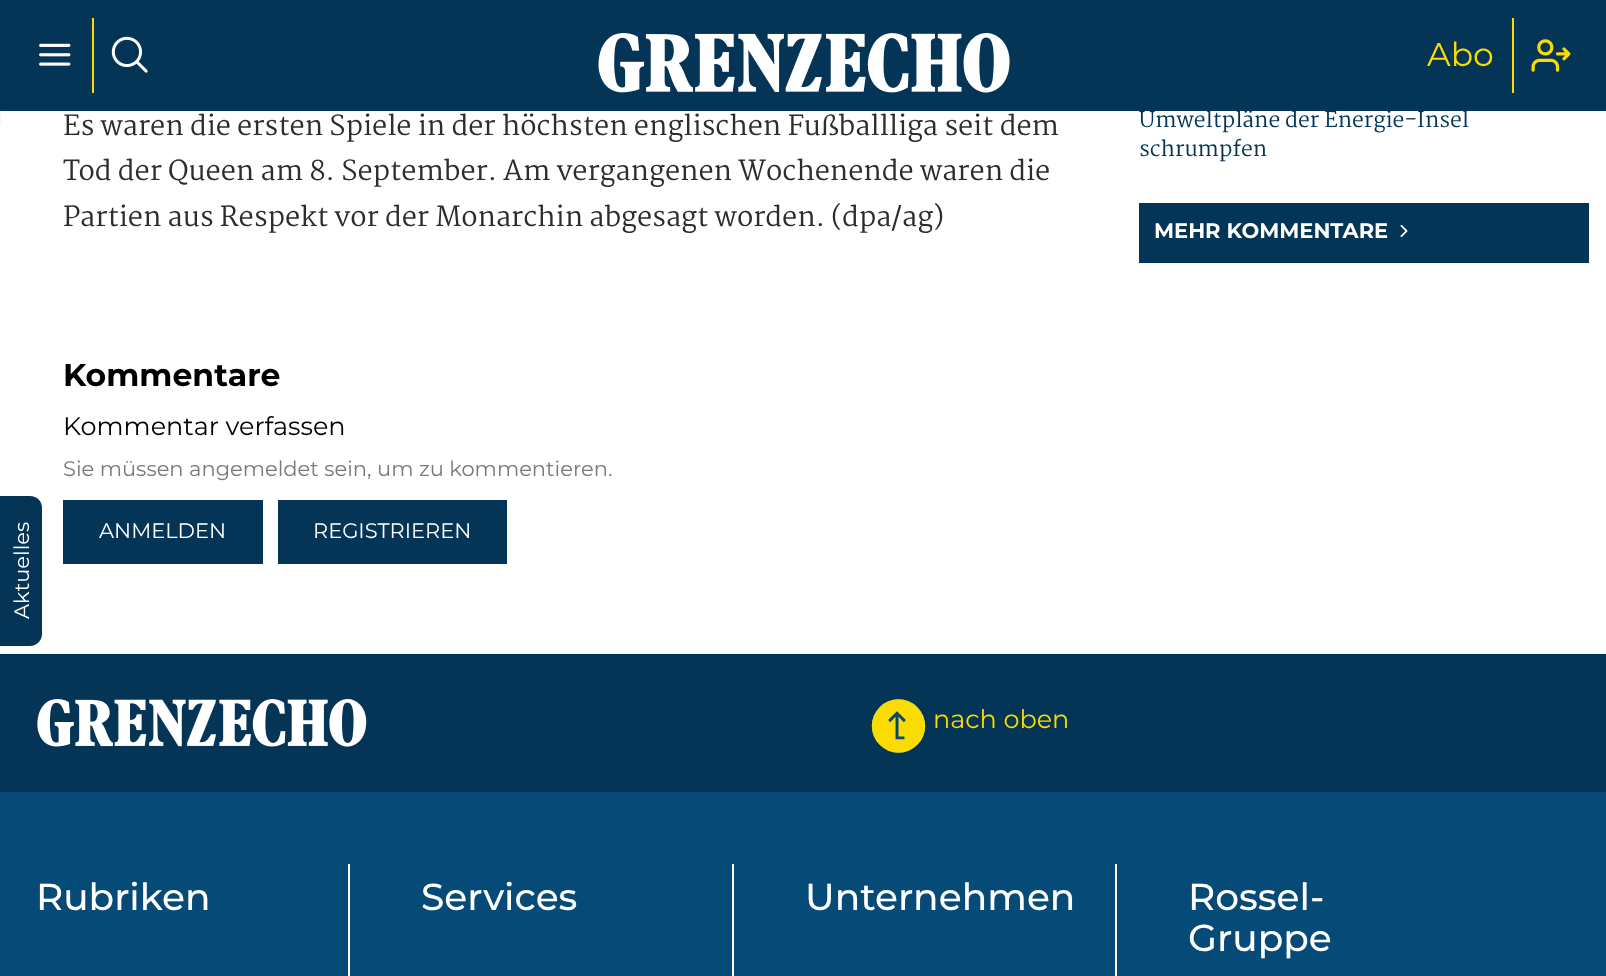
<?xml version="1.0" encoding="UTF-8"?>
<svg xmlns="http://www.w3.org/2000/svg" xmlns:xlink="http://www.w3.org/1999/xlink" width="1606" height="976">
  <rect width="100%" height="100%" fill="#ffffff" />
  <rect width="1606" height="111" fill="#043556" />
  <rect x="92" y="18" width="2" height="75" fill="#fadb02" />
  <image x="39" y="43" width="32" height="23" xlink:href="image1.png" />
  <image x="111" y="36" width="37" height="37" xlink:href="image2.png" />
  <image x="598" y="33" width="412" height="60" xlink:href="image3.png" />
  <rect x="1512" y="18" width="2" height="75" fill="#fadb02" />
  <image x="1531" y="39" width="40" height="33" xlink:href="image4.png" />
  <rect x="63" y="500" width="200" height="64" fill="#043556" />
  <rect x="278" y="500" width="229" height="64" fill="#043556" />
  <rect x="1139" y="203" width="450" height="60" fill="#043556" />
  <image x="1400" y="224" width="8" height="14" xlink:href="image5.png" />
  <rect y="111" width="1" height="12" fill="#f5f5f5" />
  <path d="M -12 646 v -150 h 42 c 7 0 12 5 12 12 v 126 c 0 6 -5 12 -12 12 z" fill="#043556" />
  <rect y="792" width="1606" height="184" fill="#064a78" />
  <rect y="654" width="1606" height="138" fill="#043556" />
  <image x="37" y="699" width="330" height="48" xlink:href="image6.png" />
  <image x="871" y="699" width="55" height="54" xlink:href="image7.png" />
  <rect x="348" y="864" width="2" height="112" fill="#ffffff" />
  <rect x="732" y="864" width="2" height="112" fill="#ffffff" />
  <rect x="1115" y="864" width="2" height="112" fill="#ffffff" />
  <text x="1427" y="66" style="font-family: Montserrat; font-size: 33px; fill: #fadb02">Abo</text>
  <text x="63" y="135" style="font-family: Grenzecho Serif; font-size: 27px; fill: #2d2d2d">Es waren die ersten Spiele in der höchsten englischen Fußballliga seit dem</text>
  <text x="63" y="180" style="font-family: Grenzecho Serif; font-size: 27px; fill: #2d2d2d">Tod der Queen am 8. September. Am vergangenen Wochenende waren die</text>
  <text x="63" y="226" style="font-family: Grenzecho Serif; font-size: 27px; fill: #2d2d2d">Partien aus Respekt vor der Monarchin abgesagt worden. (dpa/ag)</text>
  <text x="63" y="386" style="font-family: Montserrat; font-size: 31.5px; font-weight: bold; fill: #000000">Kommentare</text>
  <text x="63" y="435" style="font-family: Montserrat; font-size: 25.5px; fill: #000000">Kommentar verfassen</text>
  <text x="63" y="476" style="font-family: Montserrat; font-size: 21px; fill: #797979">Sie müssen angemeldet sein, um zu kommentieren.</text>
  <text x="99" y="538" style="font-family: Montserrat; font-size: 21px; fill: #ffffff">ANMELDEN</text>
  <text x="313" y="538" style="font-family: Montserrat; font-size: 21px; fill: #ffffff">REGISTRIEREN</text>
  <text x="1139" y="127" style="font-family: Grenzecho Serif; font-size: 21px; fill: #043556">Umweltpläne der Energie-Insel</text>
  <text x="1139" y="156" style="font-family: Grenzecho Serif; font-size: 21px; fill: #043556">schrumpfen</text>
  <text x="1154" y="238" style="font-family: Montserrat; font-size: 21px; font-weight: bold; fill: #ffffff">MEHR KOMMENTARE</text>
  <text x="29" y="619" transform="rotate(-90 29 619)" style="font-family: Montserrat; font-size: 21px; fill: #ffffff">Aktuelles</text>
  <text x="933" y="728" style="font-family: Montserrat; font-size: 25.5px; fill: #fadb02">nach oben</text>
  <text x="36" y="910" style="font-family: Montserrat; font-size: 37.5px; font-weight: 500; fill: #ffffff">Rubriken</text>
  <text x="421" y="910" style="font-family: Montserrat; font-size: 37.5px; font-weight: 500; fill: #ffffff">Services</text>
  <text x="805" y="910" style="font-family: Montserrat; font-size: 37.5px; font-weight: 500; fill: #ffffff">Unternehmen</text>
  <text x="1188" y="910" style="font-family: Montserrat; font-size: 37.5px; font-weight: 500; fill: #ffffff">Rossel-</text>
  <text x="1188" y="951" style="font-family: Montserrat; font-size: 37.5px; font-weight: 500; fill: #ffffff">Gruppe</text>
</svg>
